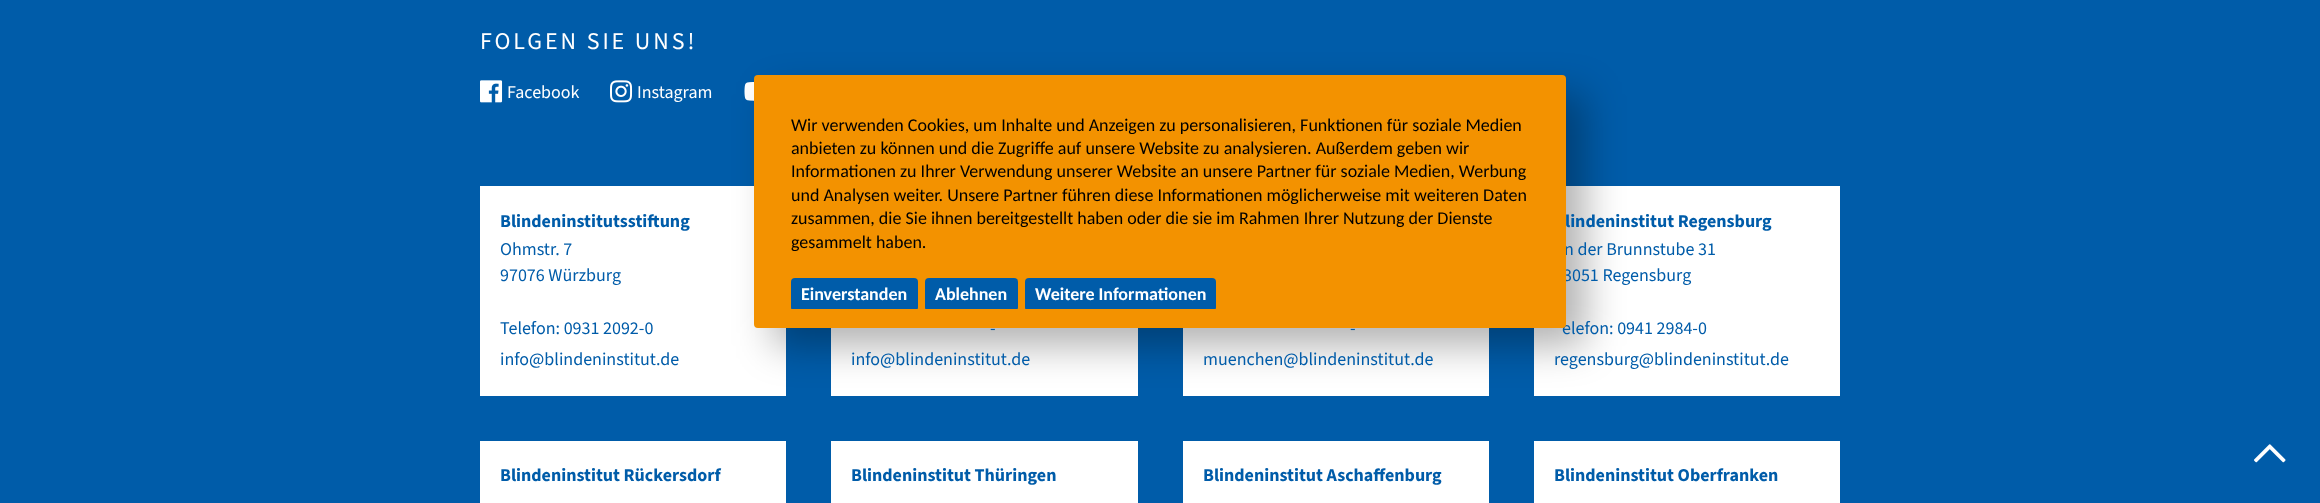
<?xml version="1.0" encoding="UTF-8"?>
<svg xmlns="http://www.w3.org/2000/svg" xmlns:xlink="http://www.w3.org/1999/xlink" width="2320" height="503">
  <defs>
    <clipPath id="clip1"><rect x="773" y="94" width="775" height="215" /></clipPath>
  </defs>
  <rect width="100%" height="100%" fill="#005ca9" />
  <image x="480" y="80" width="23" height="23" xlink:href="image1.png" />
  <image x="610" y="80" width="23" height="23" xlink:href="image2.png" />
  <image x="744" y="82" width="10" height="19" xlink:href="image3.png" />
  <rect x="480" y="186" width="306" height="210" fill="#ffffff" />
  <rect x="831" y="328" width="307" height="68" fill="#ffffff" />
  <rect x="1183" y="328" width="306" height="68" fill="#ffffff" />
  <rect x="1534" y="186" width="306" height="210" fill="#ffffff" />
  <rect x="480" y="441" width="306" height="62" fill="#ffffff" />
  <rect x="831" y="441" width="307" height="62" fill="#ffffff" />
  <rect x="1183" y="441" width="306" height="62" fill="#ffffff" />
  <rect x="1534" y="441" width="306" height="62" fill="#ffffff" />
  <rect x="773" y="94" width="812" height="252" rx="4" fill="#000000" fill-opacity="0.3" filter="blur(19px)" />
  <image x="2254" y="444" width="32" height="19" xlink:href="image4.png" />
  <text x="480" y="49" style="font-family: 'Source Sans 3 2'; font-size: 24px; font-weight: 200; letter-spacing: 2.9px; fill: #ffffff">FOLGEN SIE UNS!</text>
  <text x="507" y="98" style="font-family: 'Source Sans 3 2'; font-size: 18px; font-weight: 200; fill: #ffffff">Facebook</text>
  <text x="637" y="98" style="font-family: 'Source Sans 3 2'; font-size: 18px; font-weight: 200; fill: #ffffff">Instagram</text>
  <text x="500" y="227" style="font-family: 'Source Sans 3'; font-size: 18px; font-weight: 200; fill: #005ca9">Blindeninstitutsstiftung</text>
  <text x="500" y="255" style="font-family: 'Source Sans 3 2'; font-size: 18px; font-weight: 200; fill: #005ca9">Ohmstr. 7</text>
  <text x="500" y="281" style="font-family: 'Source Sans 3 2'; font-size: 18px; font-weight: 200; fill: #005ca9">97076 Würzburg</text>
  <text x="500" y="334" style="font-family: 'Source Sans 3 2'; font-size: 18px; font-weight: 200; fill: #005ca9">Telefon: 0931 2092-0</text>
  <text x="500" y="365" style="font-family: 'Source Sans 3 2'; font-size: 18px; font-weight: 200; fill: #005ca9">info@blindeninstitut.de</text>
  <text x="990" y="334" style="font-family: 'Source Sans 3 2'; font-size: 18px; font-weight: 200; fill: #005ca9">-</text>
  <text x="851" y="365" style="font-family: 'Source Sans 3 2'; font-size: 18px; font-weight: 200; fill: #005ca9">info@blindeninstitut.de</text>
  <text x="1350" y="334" style="font-family: 'Source Sans 3 2'; font-size: 18px; font-weight: 200; fill: #005ca9">-</text>
  <text x="1203" y="365" style="font-family: 'Source Sans 3 2'; font-size: 18px; font-weight: 200; fill: #005ca9">muenchen@blindeninstitut.de</text>
  <text x="1565" y="227" style="font-family: 'Source Sans 3'; font-size: 18px; font-weight: 200; fill: #005ca9">lindeninstitut Regensburg</text>
  <text x="1564" y="255" style="font-family: 'Source Sans 3 2'; font-size: 18px; font-weight: 200; fill: #005ca9">n der Brunnstube 31</text>
  <text x="1563" y="281" style="font-family: 'Source Sans 3 2'; font-size: 18px; font-weight: 200; fill: #005ca9">3051 Regensburg</text>
  <text x="1562" y="334" style="font-family: 'Source Sans 3 2'; font-size: 18px; font-weight: 200; fill: #005ca9">elefon: 0941 2984-0</text>
  <text x="1554" y="365" style="font-family: 'Source Sans 3 2'; font-size: 18px; font-weight: 200; fill: #005ca9">regensburg@blindeninstitut.de</text>
  <text x="500" y="481" style="font-family: 'Source Sans 3'; font-size: 18px; font-weight: 200; fill: #005ca9">Blindeninstitut Rückersdorf</text>
  <text x="851" y="481" style="font-family: 'Source Sans 3'; font-size: 18px; font-weight: 200; fill: #005ca9">Blindeninstitut Thüringen</text>
  <text x="1203" y="481" style="font-family: 'Source Sans 3'; font-size: 18px; font-weight: 200; fill: #005ca9">Blindeninstitut Aschaffenburg</text>
  <text x="1554" y="481" style="font-family: 'Source Sans 3'; font-size: 18px; font-weight: 200; fill: #005ca9">Blindeninstitut Oberfranken</text>
  <rect x="754" y="75" width="812" height="253" rx="4" fill="#f39200" />
  <text x="791" y="131" style="font-family: Carlito; font-size: 18px; fill: #000000">Wir verwenden Cookies, um Inhalte und Anzeigen zu personalisieren, Funktionen für soziale Medien</text>
  <text x="791" y="154" style="font-family: Carlito; font-size: 18px; fill: #000000">anbieten zu können und die Zugriffe auf unsere Website zu analysieren. Außerdem geben wir</text>
  <text x="791" y="177" style="font-family: Carlito; font-size: 18px; fill: #000000">Informationen zu Ihrer Verwendung unserer Website an unsere Partner für soziale Medien, Werbung</text>
  <text x="791" y="201" style="font-family: Carlito; font-size: 18px; fill: #000000">und Analysen weiter. Unsere Partner führen diese Informationen möglicherweise mit weiteren Daten</text>
  <text x="791" y="224" style="font-family: Carlito; font-size: 18px; fill: #000000">zusammen, die Sie ihnen bereitgestellt haben oder die sie im Rahmen Ihrer Nutzung der Dienste</text>
  <text x="791" y="248" style="font-family: Carlito; font-size: 18px; fill: #000000">gesammelt haben.</text>
  <g clip-path="url(#clip1)">
    <rect x="791" y="278" width="127" height="33" rx="4" fill="#005ca9" />
  </g>
  <text x="801" y="300" style="font-family: Carlito; font-size: 18px; font-weight: bold; fill: #ffffff">Einverstanden</text>
  <g clip-path="url(#clip1)">
    <rect x="925" y="278" width="93" height="33" rx="4" fill="#005ca9" />
  </g>
  <text x="935" y="300" style="font-family: Carlito; font-size: 18px; font-weight: bold; fill: #ffffff">Ablehnen</text>
  <g clip-path="url(#clip1)">
    <rect x="1025" y="278" width="191" height="33" rx="4" fill="#005ca9" />
  </g>
  <text x="1035" y="300" style="font-family: Carlito; font-size: 18px; font-weight: bold; fill: #ffffff">Weitere Informationen</text>
</svg>
